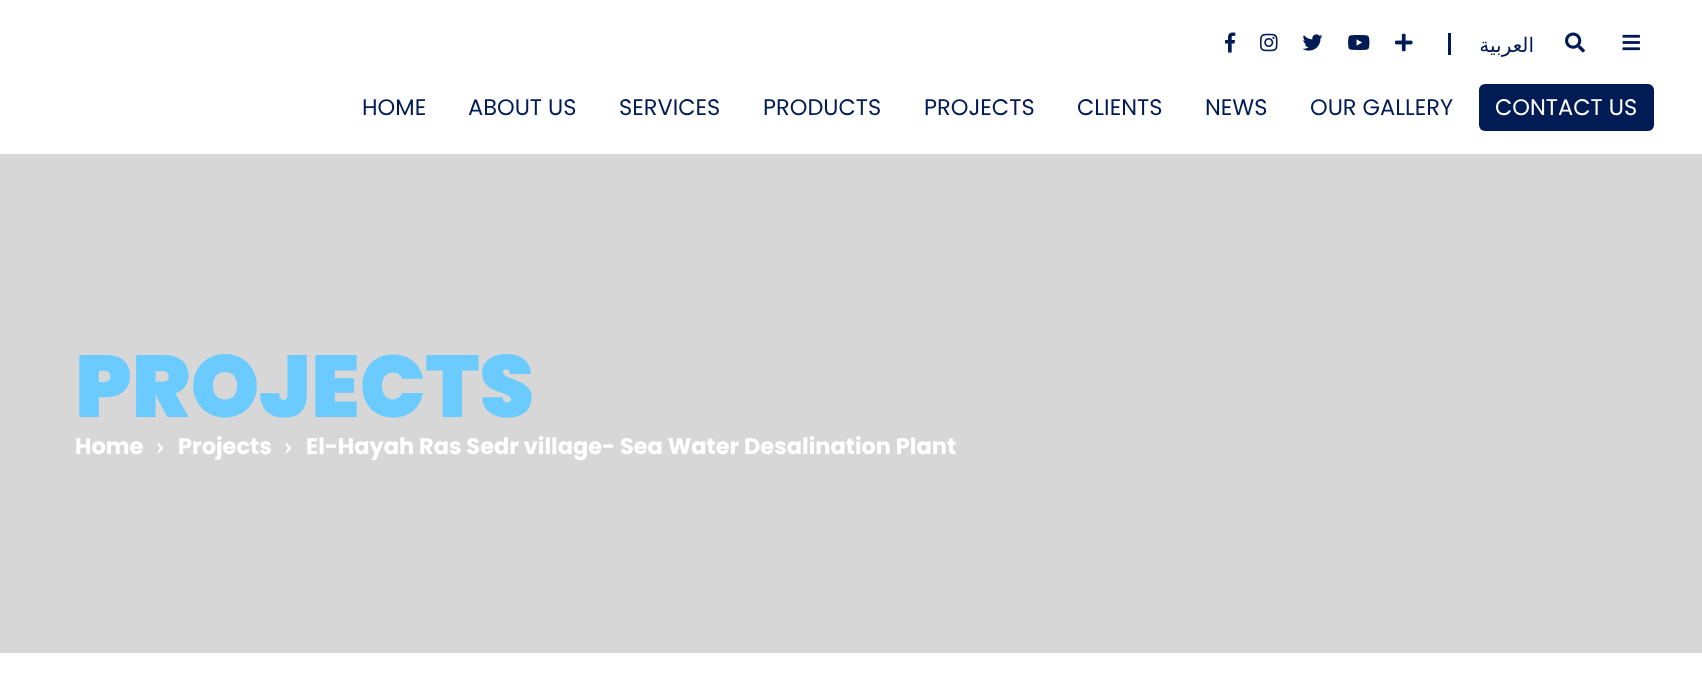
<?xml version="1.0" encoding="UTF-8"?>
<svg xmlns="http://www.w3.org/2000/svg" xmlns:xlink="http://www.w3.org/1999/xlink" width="1702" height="687">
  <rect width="100%" height="100%" fill="#ffffff" />
  <image x="1225" y="32" width="11" height="21" xlink:href="image1.png" />
  <image x="1260" y="33" width="18" height="19" xlink:href="image2.png" />
  <image x="1302" y="34" width="21" height="17" xlink:href="image3.png" />
  <image x="1348" y="35" width="22" height="15" xlink:href="image4.png" />
  <image x="1395" y="33" width="18" height="19" xlink:href="image5.png" />
  <rect x="1448" y="33" width="3" height="22" fill="#011b54" />
  <image x="1565" y="32" width="20" height="21" xlink:href="image6.png" />
  <image x="1622" y="34" width="18" height="17" xlink:href="image7.png" />
  <rect x="1479" y="84" width="175" height="47" rx="6" fill="#011b54" />
  <rect y="154" width="1702" height="499" fill="#d7d7d7" />
  <text x="1534" y="52" style="font-family: DejaVu Sans; font-size: 20px; direction: rtl; fill: #011b54">العربية</text>
  <text x="362" y="115" style="font-family: Poppins; font-size: 22.5px; fill: #011b54">HOME</text>
  <text x="468" y="115" style="font-family: Poppins; font-size: 22.5px; fill: #011b54">ABOUT US</text>
  <text x="619" y="115" style="font-family: Poppins; font-size: 22.5px; fill: #011b54">SERVICES</text>
  <text x="763" y="115" style="font-family: Poppins; font-size: 22.5px; fill: #011b54">PRODUCTS</text>
  <text x="924" y="115" style="font-family: Poppins; font-size: 22.5px; fill: #011b54">PROJECTS</text>
  <text x="1077" y="115" style="font-family: Poppins; font-size: 22.5px; fill: #011b54">CLIENTS</text>
  <text x="1205" y="115" style="font-family: Poppins; font-size: 22.5px; fill: #011b54">NEWS</text>
  <text x="1310" y="115" style="font-family: Poppins; font-size: 22.5px; fill: #011b54">OUR GALLERY</text>
  <text x="1495" y="115" style="font-family: Poppins; font-size: 22.5px; fill: #ffffff">CONTACT US</text>
  <text x="75" y="417" style="font-family: Poppins; font-size: 87.5px; font-weight: 900; fill: #6bcbff">PROJECTS</text>
  <text x="75" y="454" style="font-family: Poppins; font-size: 22.5px; font-weight: bold; fill: #ffffff">Home</text>
  <text x="156" y="454" style="font-family: Liberation Serif; font-size: 26px; font-weight: bold; fill: #ffffff">›</text>
  <text x="178" y="454" style="font-family: Poppins; font-size: 22.5px; font-weight: bold; fill: #ffffff">Projects</text>
  <text x="284" y="454" style="font-family: Liberation Serif; font-size: 26px; font-weight: bold; fill: #ffffff">›</text>
  <text x="306" y="454" style="font-family: Poppins; font-size: 22.5px; font-weight: bold; fill: #ffffff">El-Hayah Ras Sedr village- Sea Water Desalination Plant</text>
</svg>
